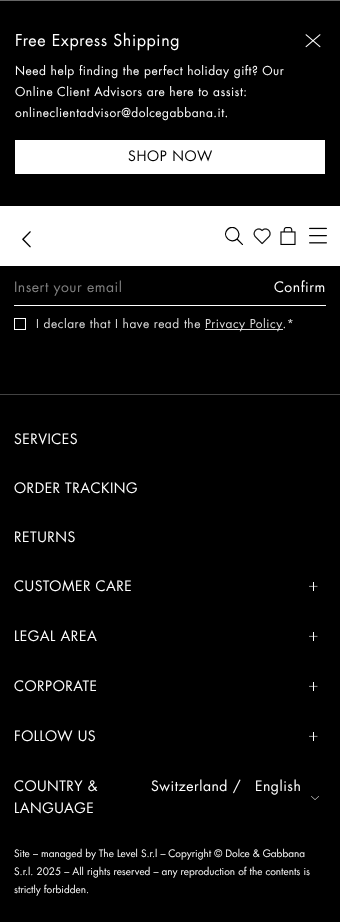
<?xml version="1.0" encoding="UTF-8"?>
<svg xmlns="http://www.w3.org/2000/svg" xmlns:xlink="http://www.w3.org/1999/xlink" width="340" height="922">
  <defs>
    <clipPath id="clip1"><rect x="225" y="227" width="18" height="18" /></clipPath>
  </defs>
  <rect width="100%" height="100%" fill="#000000" />
  <rect width="340" height="1" fill="#666666" />
  <rect x="15" y="140" width="310" height="34" fill="#ffffff" />
  <image x="305" y="34" width="16" height="14" xlink:href="image1.png" />
  <rect y="206" width="340" height="60" fill="#ffffff" />
  <g clip-path="url(#clip1)">
    <path d="M 237 239 l 6 6 m -6 -6 c 6 -6.5 -3.5 -16 -9.5 -9.5 c -6 6.5 3.5 15.5 9.5 9.5 z" fill="none" stroke="#000000" stroke-width="1.2" />
  </g>
  <image x="253" y="228" width="18" height="17" xlink:href="image2.png" />
  <image x="280" y="227" width="16" height="18" xlink:href="image3.png" />
  <image x="309" y="227" width="18" height="17" xlink:href="image4.png" />
  <image x="22" y="231" width="9" height="17" xlink:href="image5.png" />
  <rect x="14" y="305" width="312" height="1" fill="#ffffff" />
  <rect x="14.5" y="318.5" width="11" height="11" fill="none" stroke="#ffffff" />
  <rect x="205" y="329" width="78" height="1" fill="#dddddd" />
  <rect y="394" width="340" height="1" fill="#424242" />
  <image x="309" y="582" width="9" height="9" xlink:href="image6.png" />
  <image x="309" y="632" width="9" height="9" xlink:href="image6.png" />
  <image x="309" y="682" width="9" height="9" xlink:href="image6.png" />
  <image x="309" y="732" width="9" height="9" xlink:href="image6.png" />
  <image x="311" y="796" width="8" height="4" xlink:href="image7.png" />
  <text x="15" y="46" style="font-family: Futura; font-size: 16px; letter-spacing: 0.6px; fill: #ffffff">Free Express Shipping</text>
  <text x="15" y="75" style="font-family: Futura; font-size: 12px; letter-spacing: 0.5px; fill: #ffffff">Need help finding the perfect holiday gift? Our</text>
  <text x="15" y="96" style="font-family: Futura; font-size: 12px; letter-spacing: 0.5px; fill: #ffffff">Online Client Advisors are here to assist:</text>
  <text x="15" y="117" style="font-family: Futura; font-size: 12px; letter-spacing: 0.5px; fill: #ffffff">onlineclientadvisor@dolcegabbana.it.</text>
  <text x="128" y="161" style="font-family: Futura; font-size: 14px; letter-spacing: 0.6px; fill: #000000">SHOP NOW</text>
  <text x="14" y="292" style="font-family: Futura; font-size: 14px; letter-spacing: 0.5px; fill: #808080">Insert your email</text>
  <text x="274" y="292" style="font-family: Futura; font-size: 14px; letter-spacing: 0.5px; fill: #ffffff">Confirm</text>
  <text x="36" y="328" style="font-family: Futura; font-size: 12px; letter-spacing: 0.5px; fill: #dddddd">I declare that I have read the</text>
  <text x="205" y="328" style="font-family: Futura; font-size: 12px; letter-spacing: 0.5px; fill: #dddddd">Privacy Policy.*</text>
  <text x="14" y="444" style="font-family: Futura; font-size: 14px; letter-spacing: 0.5px; fill: #ffffff">SERVICES</text>
  <text x="14" y="493" style="font-family: Futura; font-size: 14px; letter-spacing: 0.5px; fill: #ffffff">ORDER TRACKING</text>
  <text x="14" y="542" style="font-family: Futura; font-size: 14px; letter-spacing: 0.5px; fill: #ffffff">RETURNS</text>
  <text x="14" y="591" style="font-family: Futura; font-size: 14px; letter-spacing: 0.5px; fill: #ffffff">CUSTOMER CARE</text>
  <text x="14" y="641" style="font-family: Futura; font-size: 14px; letter-spacing: 0.5px; fill: #ffffff">LEGAL AREA</text>
  <text x="14" y="691" style="font-family: Futura; font-size: 14px; letter-spacing: 0.5px; fill: #ffffff">CORPORATE</text>
  <text x="14" y="741" style="font-family: Futura; font-size: 14px; letter-spacing: 0.5px; fill: #ffffff">FOLLOW US</text>
  <text x="14" y="791" style="font-family: Futura; font-size: 14px; letter-spacing: 0.5px; fill: #ffffff">COUNTRY &amp;</text>
  <text x="14" y="813" style="font-family: Futura; font-size: 14px; letter-spacing: 0.5px; fill: #ffffff">LANGUAGE</text>
  <text x="151" y="791" style="font-family: Futura; font-size: 14px; letter-spacing: 0.5px; fill: #ffffff">Switzerland /</text>
  <text x="255" y="791" style="font-family: Futura; font-size: 14px; letter-spacing: 0.5px; fill: #ffffff">English</text>
  <text x="14" y="857" style="font-family: Futura; font-size: 10px; fill: #ffffff">Site – managed by The Level S.r.l – Copyright © Dolce &amp; Gabbana</text>
  <text x="14" y="875" style="font-family: Futura; font-size: 10px; fill: #ffffff">S.r.l. 2025 – All rights reserved – any reproduction of the contents is</text>
  <text x="14" y="893" style="font-family: Futura; font-size: 10px; fill: #ffffff">strictly forbidden.</text>
</svg>
